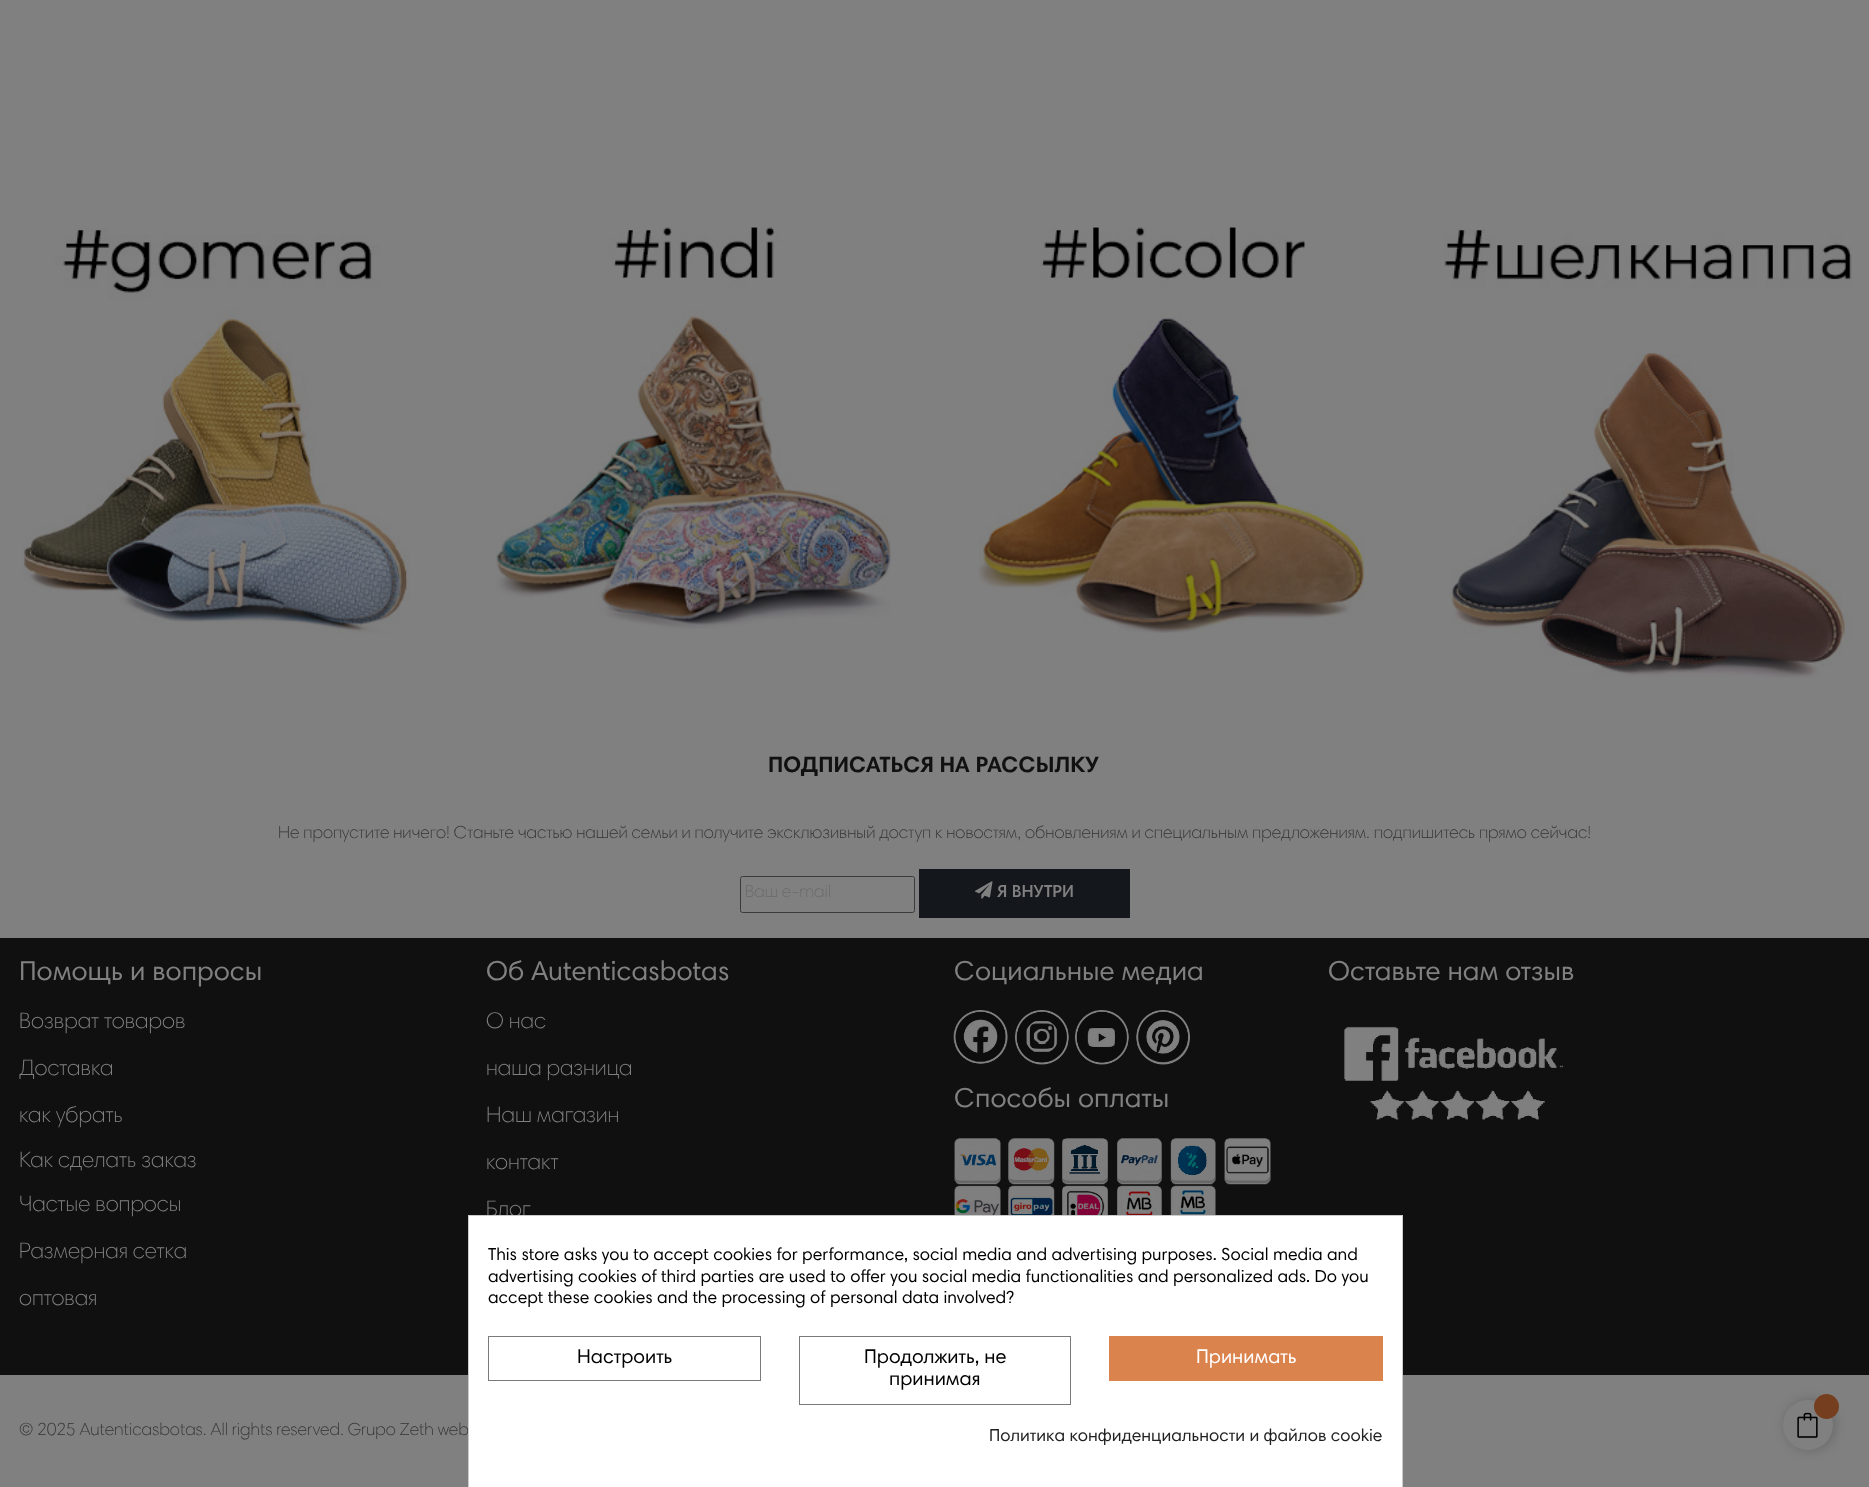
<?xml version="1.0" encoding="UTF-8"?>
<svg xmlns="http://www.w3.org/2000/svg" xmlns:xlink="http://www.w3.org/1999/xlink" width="1869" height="1487">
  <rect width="100%" height="100%" fill="#808080" />
  <image x="23" y="228" width="387" height="406" xlink:href="image1.png" />
  <image x="496" y="227" width="395" height="402" xlink:href="image2.png" />
  <image x="978" y="227" width="387" height="406" xlink:href="image3.png" />
  <image x="1444" y="229" width="408" height="449" xlink:href="image4.png" />
  <rect x="740.5" y="876.5" width="174" height="36" rx="2" fill="none" stroke="#3b3b3b" />
  <rect x="919" y="869" width="211" height="49" fill="#14171b" />
  <image x="975" y="881" width="18" height="18" xlink:href="image5.png" />
  <rect y="938" width="1869" height="437" fill="#101010" />
  <image x="953" y="1010" width="55" height="54" xlink:href="image6.png" />
  <image x="1015" y="1010" width="54" height="55" xlink:href="image7.png" />
  <image x="1075" y="1010" width="54" height="55" xlink:href="image8.png" />
  <image x="1136" y="1010" width="54" height="55" xlink:href="image9.png" />
  <image x="954" y="1138" width="47" height="47" xlink:href="image10.png" />
  <image x="1008" y="1138" width="47" height="47" xlink:href="image11.png" />
  <image x="1062" y="1138" width="46" height="47" xlink:href="image12.png" />
  <image x="1117" y="1138" width="45" height="47" xlink:href="image13.png" />
  <image x="1170" y="1138" width="46" height="47" xlink:href="image14.png" />
  <image x="1224" y="1138" width="47" height="47" xlink:href="image15.png" />
  <image x="954" y="1185" width="47" height="30" xlink:href="image16.png" />
  <image x="1008" y="1185" width="47" height="30" xlink:href="image17.png" />
  <image x="1062" y="1185" width="46" height="30" xlink:href="image18.png" />
  <image x="1117" y="1185" width="45" height="30" xlink:href="image19.png" />
  <image x="1170" y="1185" width="46" height="30" xlink:href="image20.png" />
  <image x="1344" y="1026" width="220" height="94" xlink:href="image21.png" />
  <rect x="1785" y="1400" width="50" height="50" rx="25" fill="#000000" fill-opacity="0.2" filter="blur(6px)" />
  <circle cx="1808" cy="1425" r="25" fill="#808080" />
  <image x="1797" y="1412" width="21" height="26" xlink:href="image22.png" />
  <circle cx="1826.5" cy="1406.5" r="12.5" fill="#753f1f" />
  <text x="768" y="772" style="font-family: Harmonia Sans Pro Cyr; font-size: 22.5px; font-weight: bold; fill: #111111">ПОДПИСАТЬСЯ НА РАССЫЛКУ</text>
  <text x="278" y="838" style="font-family: Harmonia Sans Pro Cyr; font-size: 17.5px; font-weight: 300; fill: #333333">Не пропустите ничего! Станьте частью нашей семьи и получите эксклюзивный доступ к новостям, обновлениям и специальным предложениям. подпишитесь прямо сейчас!</text>
  <text x="745" y="897" style="font-family: Harmonia Sans Pro Cyr; font-size: 17.5px; font-weight: 300; fill: #696968">Ваш e-mail</text>
  <text x="997" y="897" style="font-family: Harmonia Sans Pro Cyr; font-size: 17.5px; font-weight: 600; fill: #808080">Я ВНУТРИ</text>
  <text x="19" y="980" style="font-family: Harmonia Sans Pro Cyr; font-size: 27.5px; fill: #808080">Помощь и вопросы</text>
  <text x="19" y="1028" style="font-family: Harmonia Sans Pro Cyr; font-size: 22.5px; font-weight: 300; fill: #808080">Возврат товаров</text>
  <text x="19" y="1075" style="font-family: Harmonia Sans Pro Cyr; font-size: 22.5px; font-weight: 300; fill: #808080">Доставка</text>
  <text x="19" y="1122" style="font-family: Harmonia Sans Pro Cyr; font-size: 22.5px; font-weight: 300; fill: #808080">как убрать</text>
  <text x="19" y="1167" style="font-family: Harmonia Sans Pro Cyr; font-size: 22.5px; font-weight: 300; fill: #808080">Как сделать заказ</text>
  <text x="19" y="1211" style="font-family: Harmonia Sans Pro Cyr; font-size: 22.5px; font-weight: 300; fill: #808080">Частые вопросы</text>
  <text x="19" y="1258" style="font-family: Harmonia Sans Pro Cyr; font-size: 22.5px; font-weight: 300; fill: #808080">Размерная сетка</text>
  <text x="19" y="1305" style="font-family: Harmonia Sans Pro Cyr; font-size: 22.5px; font-weight: 300; fill: #808080">оптовая</text>
  <text x="486" y="980" style="font-family: Harmonia Sans Pro Cyr; font-size: 27.5px; fill: #808080">Об Autenticasbotas</text>
  <text x="486" y="1028" style="font-family: Harmonia Sans Pro Cyr; font-size: 22.5px; font-weight: 300; fill: #808080">О нас</text>
  <text x="486" y="1075" style="font-family: Harmonia Sans Pro Cyr; font-size: 22.5px; font-weight: 300; fill: #808080">наша разница</text>
  <text x="486" y="1122" style="font-family: Harmonia Sans Pro Cyr; font-size: 22.5px; font-weight: 300; fill: #808080">Наш магазин</text>
  <text x="486" y="1169" style="font-family: Harmonia Sans Pro Cyr; font-size: 22.5px; font-weight: 300; fill: #808080">контакт</text>
  <text x="486" y="1216" style="font-family: Harmonia Sans Pro Cyr; font-size: 22.5px; font-weight: 300; fill: #808080">Блог</text>
  <text x="954" y="980" style="font-family: Harmonia Sans Pro Cyr; font-size: 27.5px; fill: #808080">Социальные медиа</text>
  <text x="954" y="1107" style="font-family: Harmonia Sans Pro Cyr; font-size: 27.5px; fill: #808080">Способы оплаты</text>
  <text x="1328" y="980" style="font-family: Harmonia Sans Pro Cyr; font-size: 27.5px; fill: #808080">Оставьте нам отзыв</text>
  <text x="19" y="1435" style="font-family: Harmonia Sans Pro Cyr; font-size: 17.5px; font-weight: 300; fill: #333333">© 2025 Autenticasbotas. All rights reserved. Grupo Zeth web</text>
  <rect x="468.5" y="1215.5" width="934" height="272" fill="#ffffff" stroke="#cccccc" />
  <text x="488" y="1260" style="font-family: Harmonia Sans Pro Cyr; font-size: 17.5px; fill: #000000">This store asks you to accept cookies for performance, social media and advertising purposes. Social media and</text>
  <text x="488" y="1282" style="font-family: Harmonia Sans Pro Cyr; font-size: 17.5px; fill: #000000">advertising cookies of third parties are used to offer you social media functionalities and personalized ads. Do you</text>
  <text x="488" y="1303" style="font-family: Harmonia Sans Pro Cyr; font-size: 17.5px; fill: #000000">accept these cookies and the processing of personal data involved?</text>
  <rect x="488.5" y="1336.5" width="272" height="44" fill="none" stroke="#7a7a7a" />
  <text x="577" y="1363" style="font-family: Harmonia Sans Pro Cyr; font-size: 20px; fill: #000000">Настроить</text>
  <rect x="799.5" y="1336.5" width="271" height="68" fill="none" stroke="#7a7a7a" />
  <text x="864" y="1363" style="font-family: Harmonia Sans Pro Cyr; font-size: 20px; fill: #000000">Продолжить, не</text>
  <text x="889" y="1385" style="font-family: Harmonia Sans Pro Cyr; font-size: 20px; fill: #000000">принимая</text>
  <rect x="1109" y="1336" width="274" height="45" fill="#db834d" />
  <text x="1196" y="1363" style="font-family: Harmonia Sans Pro Cyr; font-size: 20px; fill: #ffffff">Принимать</text>
  <text x="989" y="1441" style="font-family: Harmonia Sans Pro Cyr; font-size: 17.5px; fill: #222222">Политика конфиденциальности и файлов cookie</text>
</svg>
